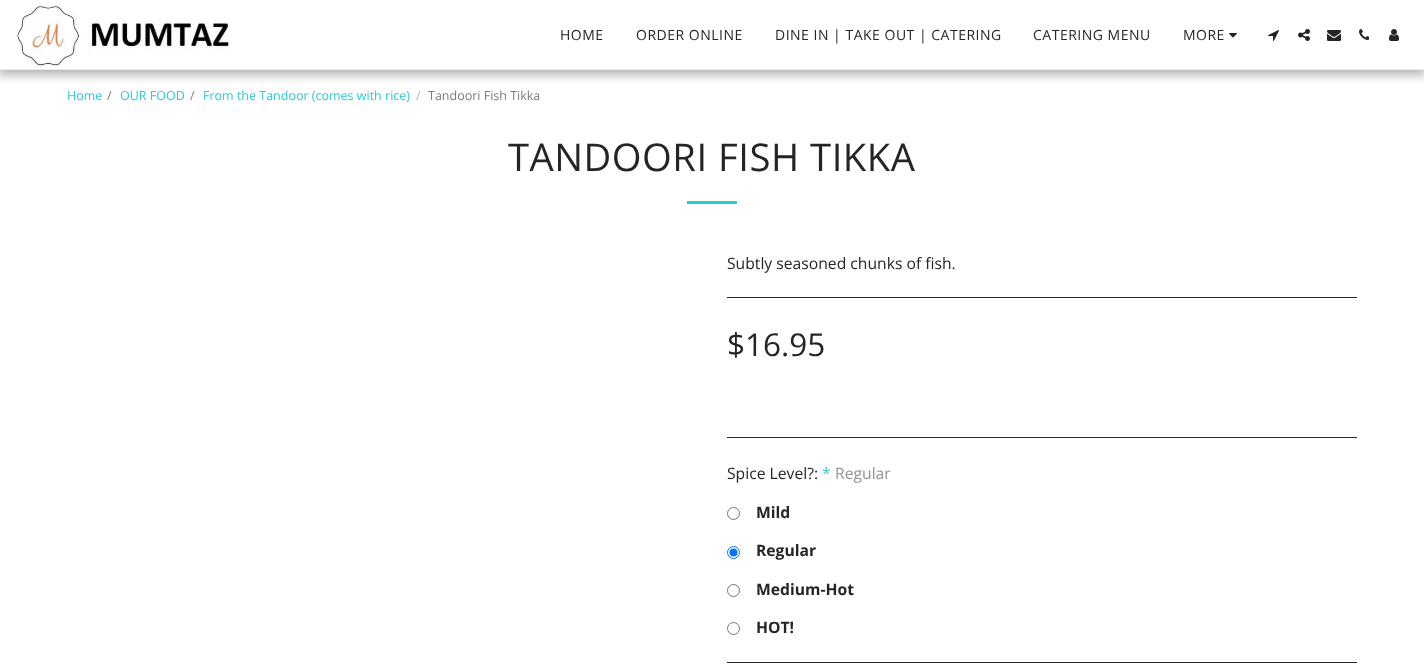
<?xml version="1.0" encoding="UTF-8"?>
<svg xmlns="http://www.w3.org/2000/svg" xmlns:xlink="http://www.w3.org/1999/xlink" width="1424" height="667">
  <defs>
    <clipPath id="clip1"><rect x="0" y="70" width="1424" height="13" /></clipPath>
  </defs>
  <rect width="100%" height="100%" fill="#ffffff" />
  <g clip-path="url(#clip1)">
    <rect x="-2" width="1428" height="74" fill="#000000" fill-opacity="0.35" filter="blur(6px)" />
  </g>
  <rect y="69" width="1424" height="1" fill="#ebebeb" />
  <image x="16" y="5" width="213" height="62" xlink:href="image1.png" />
  <image x="1229" y="33" width="8" height="5" xlink:href="image2.png" />
  <image x="1268" y="30" width="11" height="11" xlink:href="image3.png" />
  <image x="1298" y="29" width="12" height="12" xlink:href="image4.png" />
  <image x="1327" y="30" width="14" height="11" xlink:href="image5.png" />
  <image x="1359" y="29" width="10" height="11" xlink:href="image6.png" />
  <image x="1389" y="29" width="10" height="12" xlink:href="image7.png" />
  <rect x="687" y="201" width="50" height="3" fill="#2acbd2" />
  <rect x="727" y="297" width="630" height="1" fill="#252525" />
  <rect x="727" y="437" width="630" height="1" fill="#252525" />
  <circle cx="733.5" cy="513.5" r="6" fill="none" stroke="#767676" />
  <circle cx="733.5" cy="552.5" r="6" fill="none" stroke="#0075ff" />
  <circle cx="733.5" cy="552.5" r="4" fill="#0075ff" />
  <circle cx="733.5" cy="590.5" r="6" fill="none" stroke="#767676" />
  <circle cx="733.5" cy="628.5" r="6" fill="none" stroke="#767676" />
  <rect x="727" y="662" width="630" height="1" fill="#252525" />
  <text x="560" y="40" style="font-family: Open Sans; font-size: 14px; letter-spacing: 0.5px; fill: #252525">HOME</text>
  <text x="636" y="40" style="font-family: Open Sans; font-size: 14px; letter-spacing: 0.5px; fill: #252525">ORDER ONLINE</text>
  <text x="775" y="40" style="font-family: Open Sans; font-size: 14px; letter-spacing: 0.5px; fill: #252525">DINE IN | TAKE OUT | CATERING</text>
  <text x="1033" y="40" style="font-family: Open Sans; font-size: 14px; letter-spacing: 0.5px; fill: #252525">CATERING MENU</text>
  <text x="1183" y="40" style="font-family: Open Sans; font-size: 14px; letter-spacing: 0.5px; fill: #252525">MORE</text>
  <text x="67" y="100" style="font-family: Open Sans; font-size: 12.5px; fill: #2acbd2">Home</text>
  <text x="107" y="100" style="font-family: Open Sans; font-size: 12.5px; fill: #7c7c7c">/</text>
  <text x="120" y="100" style="font-family: Open Sans; font-size: 12.5px; fill: #2acbd2">OUR FOOD</text>
  <text x="190" y="100" style="font-family: Open Sans; font-size: 12.5px; fill: #7c7c7c">/</text>
  <text x="203" y="100" style="font-family: Open Sans; font-size: 12.5px; fill: #2acbd2">From the Tandoor (comes with rice)</text>
  <text x="416" y="100" style="font-family: Open Sans; font-size: 12.5px; fill: #b1b1b1">/</text>
  <text x="428" y="100" style="font-family: Open Sans; font-size: 12.5px; fill: #7c7c7c">Tandoori Fish Tikka</text>
  <text x="508" y="171" style="font-family: Open Sans; font-size: 38.25px; letter-spacing: 0.5px; fill: #252525">TANDOORI FISH TIKKA</text>
  <text x="727" y="269" style="font-family: Open Sans; font-size: 15.7px; fill: #252525">Subtly seasoned chunks of fish.</text>
  <text x="727" y="356" style="font-family: Open Sans; font-size: 31.5px; fill: #252525">$16.95</text>
  <text x="727" y="479" style="font-family: Open Sans; font-size: 15.7px; fill: #252525">Spice Level?:</text>
  <text x="822" y="479" style="font-family: Open Sans; font-size: 15.7px; fill: #2acbd2">*</text>
  <text x="835" y="479" style="font-family: Open Sans; font-size: 15.7px; fill: #929292">Regular</text>
  <text x="756" y="518" style="font-family: Open Sans; font-size: 15.7px; font-weight: bold; fill: #252525">Mild</text>
  <text x="756" y="556" style="font-family: Open Sans; font-size: 15.7px; font-weight: bold; fill: #252525">Regular</text>
  <text x="756" y="595" style="font-family: Open Sans; font-size: 15.7px; font-weight: bold; fill: #252525">Medium-Hot</text>
  <text x="756" y="633" style="font-family: Open Sans; font-size: 15.7px; font-weight: bold; fill: #252525">HOT!</text>
</svg>
